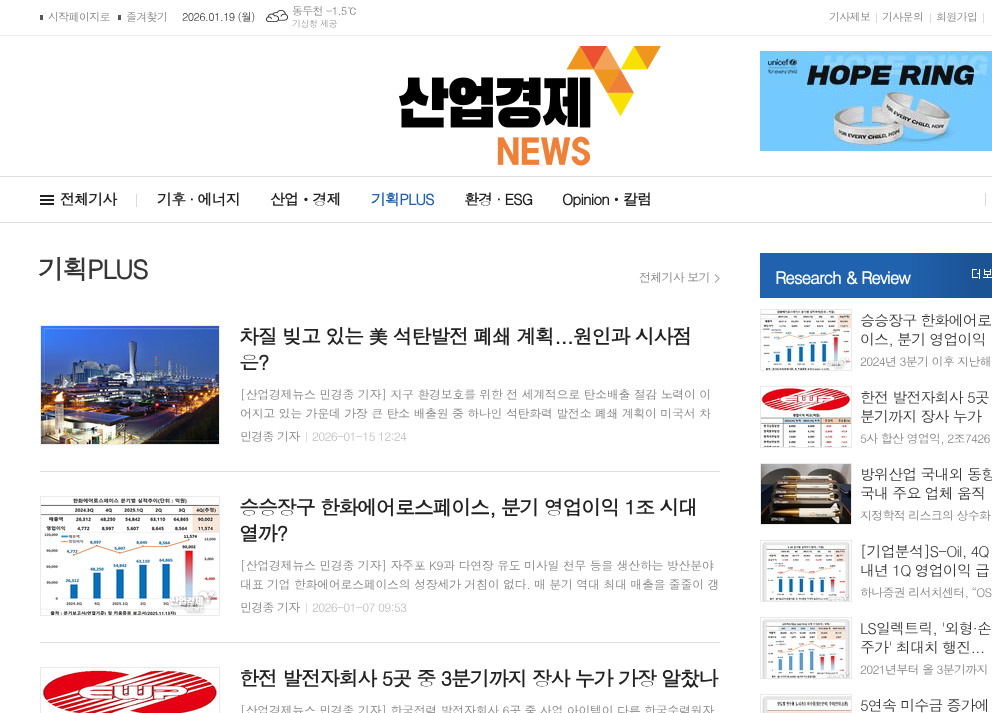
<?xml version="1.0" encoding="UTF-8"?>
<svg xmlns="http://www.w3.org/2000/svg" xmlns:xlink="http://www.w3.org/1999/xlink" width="992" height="713">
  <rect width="100%" height="100%" fill="#ffffff" />
  <rect y="35" width="992" height="1" fill="#ededed" />
  <rect x="40" y="15" width="3" height="5" fill="#575757" />
  <rect x="118" y="15" width="3" height="5" fill="#575757" />
  <image x="266" y="10" width="22" height="12" xlink:href="image1.png" />
  <rect x="876" y="13" width="1" height="10" fill="#dbdbdb" />
  <rect x="930" y="13" width="1" height="10" fill="#dbdbdb" />
  <rect x="983" y="13" width="1" height="10" fill="#dbdbdb" />
  <rect y="176" width="992" height="1" fill="#dedede" />
  <image x="399" y="46" width="262" height="120" xlink:href="image2.png" />
  <image x="760" y="51" width="232" height="100" xlink:href="image3.png" />
  <rect y="222" width="992" height="1" fill="#dedede" />
  <rect x="136" y="194" width="1" height="13" fill="#dbdbdb" />
  <image x="40" y="195" width="14" height="10" xlink:href="image4.png" />
  <rect x="985" y="193" width="1" height="13" fill="#dbdbdb" />
  <image x="715" y="274" width="5" height="9" xlink:href="image5.png" />
  <rect x="40" y="471" width="680" height="1" fill="#dedede" />
  <rect x="40.5" y="325.5" width="179" height="119" fill="none" stroke="#eaeaea" />
  <image x="41" y="326" width="178" height="118" xlink:href="image6.png" />
  <rect x="306" y="432" width="1" height="10" fill="#dedede" />
  <rect x="40" y="642" width="680" height="1" fill="#dedede" />
  <rect x="40.5" y="496.5" width="179" height="119" fill="none" stroke="#eaeaea" />
  <image x="41" y="498" width="178" height="117" xlink:href="image7.png" />
  <rect x="306" y="603" width="1" height="10" fill="#dedede" />
  <rect x="40.5" y="667.5" width="179" height="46" fill="none" stroke="#eaeaea" />
  <image x="41" y="668" width="178" height="45" xlink:href="image8.png" />
  <rect x="760" y="253" width="232" height="45" fill="#2162af" />
  <image x="912" y="253" width="80" height="45" xlink:href="image9.png" />
  <image x="972" y="269" width="20" height="10" xlink:href="image10.png" />
  <rect x="760.5" y="309.5" width="91" height="61" fill="none" stroke="#eaeaea" />
  <image x="761" y="310" width="90" height="60" xlink:href="image11.png" />
  <rect x="760.5" y="386.5" width="91" height="61" fill="none" stroke="#eaeaea" />
  <image x="761" y="387" width="90" height="60" xlink:href="image12.png" />
  <rect x="760.5" y="463.5" width="91" height="61" fill="none" stroke="#eaeaea" />
  <image x="761" y="464" width="90" height="60" xlink:href="image13.png" />
  <rect x="760.5" y="540.5" width="91" height="61" fill="none" stroke="#eaeaea" />
  <image x="762" y="541" width="88" height="60" xlink:href="image14.png" />
  <rect x="760.5" y="617.5" width="91" height="61" fill="none" stroke="#eaeaea" />
  <image x="762" y="619" width="88" height="59" xlink:href="image15.png" />
  <rect x="760.5" y="694.5" width="91" height="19" fill="none" stroke="#eaeaea" />
  <image x="762" y="696" width="89" height="17" xlink:href="image16.png" />
  <text x="48" y="21" style="font-family: Dotum; font-size: 11px; letter-spacing: -0.7px; fill: #808080">시작페이지로</text>
  <text x="126" y="21" style="font-family: Dotum; font-size: 11px; letter-spacing: -0.7px; fill: #808080">즐겨찾기</text>
  <text x="182" y="21" style="font-family: Dotum; font-size: 11px; letter-spacing: -0.7px; fill: #363636">2026.01.19 (월)</text>
  <text x="292" y="15" style="font-family: Dotum; font-size: 11px; letter-spacing: -0.7px; fill: #808080">동두천 -1.5℃</text>
  <text x="292" y="27" style="font-family: Dotum; font-size: 9px; letter-spacing: -0.5px; fill: #999999">기상청 제공</text>
  <text x="829" y="21" style="font-family: Dotum; font-size: 11px; letter-spacing: -0.7px; fill: #808080">기사제보</text>
  <text x="882" y="21" style="font-family: Dotum; font-size: 11px; letter-spacing: -0.7px; fill: #808080">기사문의</text>
  <text x="936" y="21" style="font-family: Dotum; font-size: 11px; letter-spacing: -0.7px; fill: #808080">회원가입</text>
  <text x="60" y="205" style="font-family: Dotum; font-size: 15px; font-weight: bold; letter-spacing: -0.9px; fill: #222222">전체기사</text>
  <text x="157" y="205" style="font-family: Dotum; font-size: 15px; font-weight: bold; letter-spacing: -0.9px; fill: #222222">기후 · 에너지</text>
  <text x="270" y="205" style="font-family: Dotum; font-size: 15px; font-weight: bold; letter-spacing: -0.9px; fill: #222222">산업ㆍ경제</text>
  <text x="371" y="205" style="font-family: Dotum; font-size: 15px; font-weight: bold; letter-spacing: -0.9px; fill: #2162af">기획PLUS</text>
  <text x="464" y="205" style="font-family: Dotum; font-size: 15px; font-weight: bold; letter-spacing: -0.9px; fill: #222222">환경 · ESG</text>
  <text x="562" y="205" style="font-family: Dotum; font-size: 15px; font-weight: bold; letter-spacing: -0.9px; fill: #222222">Opinionㆍ칼럼</text>
  <text x="38" y="279" style="font-family: Dotum; font-size: 26px; font-weight: bold; letter-spacing: -1.5px; fill: #363636">기획PLUS</text>
  <text x="639" y="282" style="font-family: Dotum; font-size: 12px; letter-spacing: -0.75px; fill: #808080">전체기사 보기</text>
  <text x="239" y="344" style="font-family: Dotum; font-size: 20px; font-weight: bold; letter-spacing: -1.2px; fill: #222222">차질 빚고 있는 美 석탄발전 폐쇄 계획...원인과 시사점</text>
  <text x="239" y="370" style="font-family: Dotum; font-size: 20px; font-weight: bold; letter-spacing: -1.2px; fill: #222222">은?</text>
  <text x="240" y="399" style="font-family: Dotum; font-size: 12px; letter-spacing: -0.35px; fill: #808080">[산업경제뉴스 민경종 기자] 지구 환경보호를 위한 전 세계적으로 탄소배출 절감 노력이 이</text>
  <text x="240" y="418" style="font-family: Dotum; font-size: 12px; letter-spacing: -0.35px; fill: #808080">어지고 있는 가운데 가장 큰 탄소 배출원 중 하나인 석탄화력 발전소 폐쇄 계획이 미국서 차</text>
  <text x="240" y="441" style="font-family: Dotum; font-size: 12px; letter-spacing: -0.75px; fill: #808080">민경종 기자</text>
  <text x="312" y="441" style="font-family: Dotum; font-size: 12px; letter-spacing: -0.75px; fill: #bbbbbb">2026-01-15 12:24</text>
  <text x="239" y="515" style="font-family: Dotum; font-size: 20px; font-weight: bold; letter-spacing: -1.2px; fill: #222222">승승장구 한화에어로스페이스, 분기 영업이익 1조 시대</text>
  <text x="239" y="541" style="font-family: Dotum; font-size: 20px; font-weight: bold; letter-spacing: -1.2px; fill: #222222">열까?</text>
  <text x="240" y="570" style="font-family: Dotum; font-size: 12px; letter-spacing: -0.35px; fill: #808080">[산업경제뉴스 민경종 기자] 자주포 K9과 다연장 유도 미사일 천무 등을 생산하는 방산분야</text>
  <text x="240" y="589" style="font-family: Dotum; font-size: 12px; letter-spacing: -0.35px; fill: #808080">대표 기업 한화에어로스페이스의 성장세가 거침이 없다. 매 분기 역대 최대 매출을 줄줄이 갱</text>
  <text x="240" y="612" style="font-family: Dotum; font-size: 12px; letter-spacing: -0.75px; fill: #808080">민경종 기자</text>
  <text x="312" y="612" style="font-family: Dotum; font-size: 12px; letter-spacing: -0.75px; fill: #bbbbbb">2026-01-07 09:53</text>
  <text x="239" y="686" style="font-family: Dotum; font-size: 20px; font-weight: bold; letter-spacing: -1.2px; fill: #222222">한전 발전자회사 5곳 중 3분기까지 장사 누가 가장 알찼나</text>
  <text x="240" y="715" style="font-family: Dotum; font-size: 12px; letter-spacing: -0.35px; fill: #808080">[산업경제뉴스 민경종 기자] 한국전력 발전자회사 6곳 중 사업 아이템이 다른 한국수력원자</text>
  <text x="775" y="284" style="font-family: Dotum; font-size: 17px; font-weight: bold; letter-spacing: -1px; fill: #ffffff">Research &amp; Review</text>
  <text x="860" y="326" style="font-family: Dotum; font-size: 15px; letter-spacing: -0.9px; fill: #363636">승승장구 한화에어로</text>
  <text x="860" y="345" style="font-family: Dotum; font-size: 15px; letter-spacing: -0.9px; fill: #363636">이스, 분기 영업이익</text>
  <text x="860" y="366" style="font-family: Dotum; font-size: 12px; letter-spacing: -0.75px; fill: #808080">2024년 3분기 이후 지난해</text>
  <text x="860" y="403" style="font-family: Dotum; font-size: 15px; letter-spacing: -0.9px; fill: #363636">한전 발전자회사 5곳</text>
  <text x="860" y="422" style="font-family: Dotum; font-size: 15px; letter-spacing: -0.9px; fill: #363636">분기까지 장사 누가</text>
  <text x="860" y="443" style="font-family: Dotum; font-size: 12px; letter-spacing: -0.75px; fill: #808080">5사 합산 영업익, 2조7426</text>
  <text x="860" y="480" style="font-family: Dotum; font-size: 15px; letter-spacing: -0.9px; fill: #363636">방위산업 국내외 동향</text>
  <text x="860" y="499" style="font-family: Dotum; font-size: 15px; letter-spacing: -0.9px; fill: #363636">국내 주요 업체 움직</text>
  <text x="860" y="520" style="font-family: Dotum; font-size: 12px; letter-spacing: -0.75px; fill: #808080">지정학적 리스크의 상수화</text>
  <text x="860" y="557" style="font-family: Dotum; font-size: 15px; letter-spacing: -0.9px; fill: #363636">[기업분석]S-Oil, 4Q</text>
  <text x="860" y="576" style="font-family: Dotum; font-size: 15px; letter-spacing: -0.9px; fill: #363636">내년 1Q 영업이익 급</text>
  <text x="860" y="597" style="font-family: Dotum; font-size: 12px; letter-spacing: -0.75px; fill: #808080">하나증권 리서치센터, “OS</text>
  <text x="860" y="634" style="font-family: Dotum; font-size: 15px; letter-spacing: -0.9px; fill: #363636">LS일렉트릭, '외형·손</text>
  <text x="860" y="653" style="font-family: Dotum; font-size: 15px; letter-spacing: -0.9px; fill: #363636">주가' 최대치 행진...</text>
  <text x="860" y="674" style="font-family: Dotum; font-size: 12px; letter-spacing: -0.75px; fill: #808080">2021년부터 올 3분기까지</text>
  <text x="860" y="711" style="font-family: Dotum; font-size: 15px; letter-spacing: -0.9px; fill: #363636">5연속 미수금 증가에</text>
</svg>
